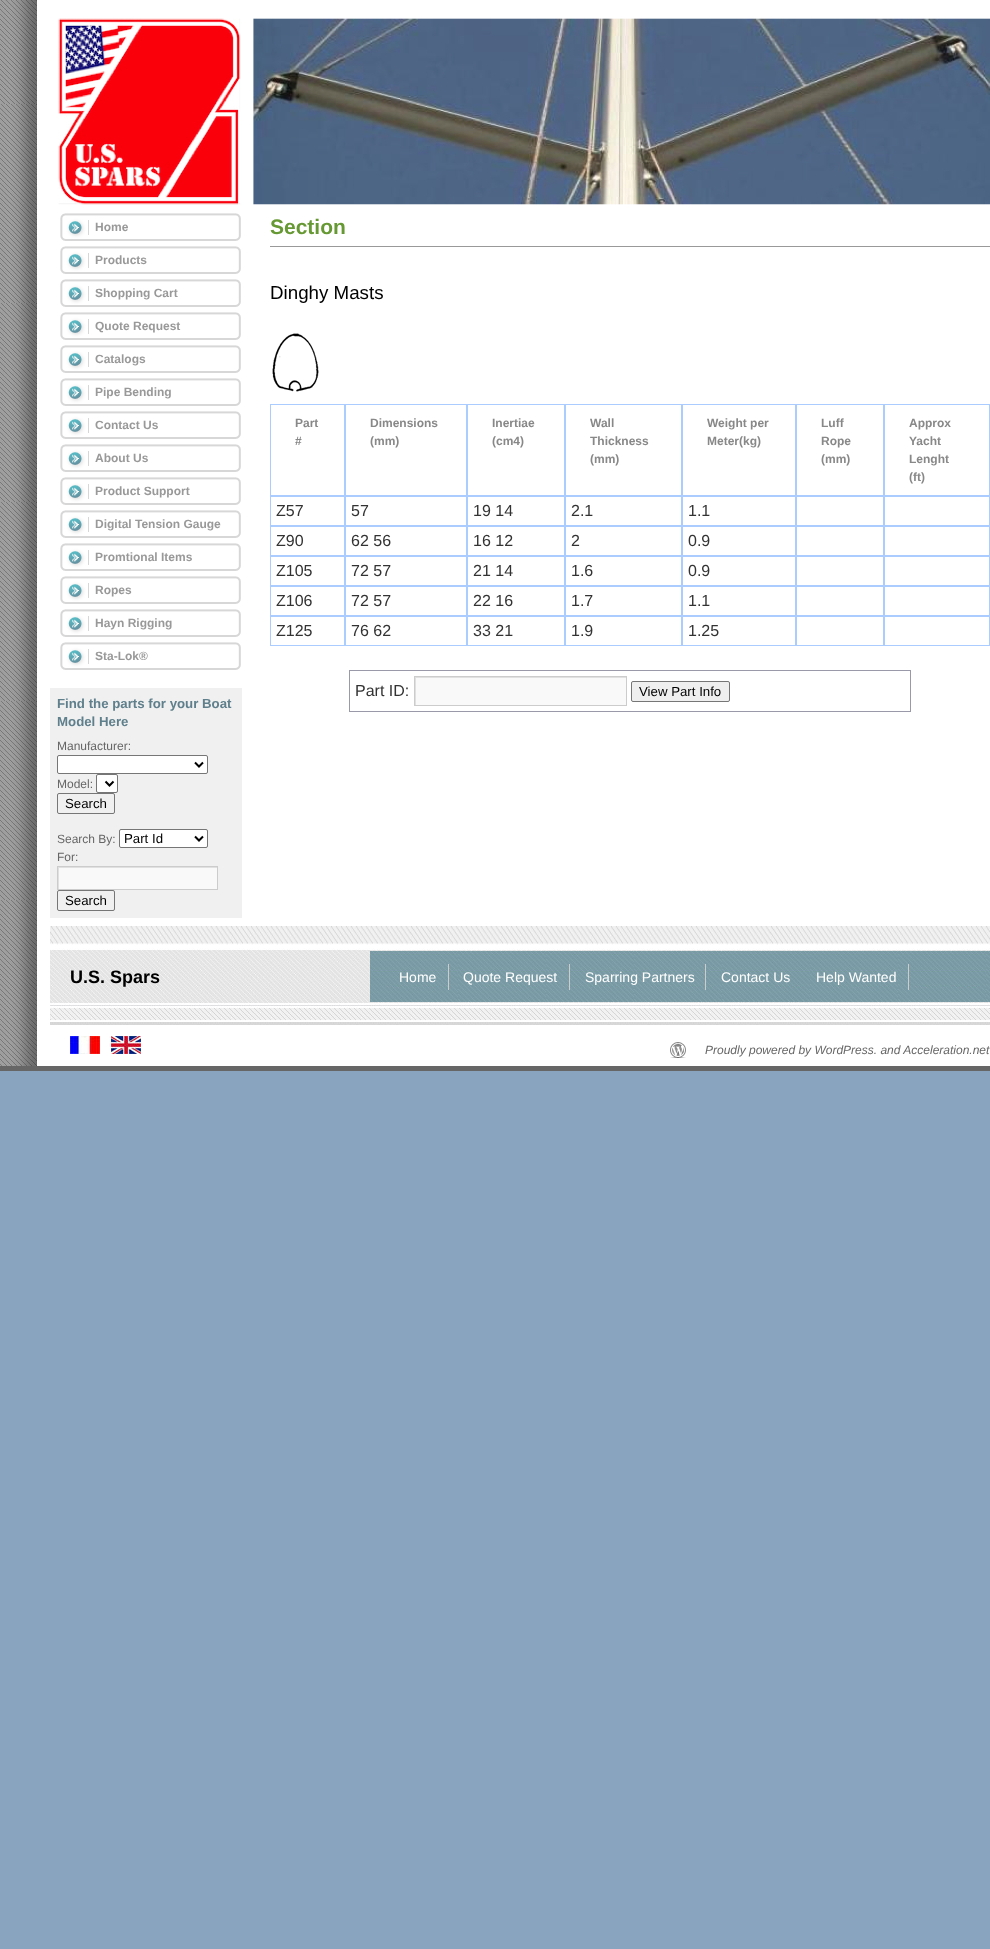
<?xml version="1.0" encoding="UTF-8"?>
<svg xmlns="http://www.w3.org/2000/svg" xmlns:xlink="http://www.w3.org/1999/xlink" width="990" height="1949">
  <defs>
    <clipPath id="clip1"><rect x="58" y="867" width="159" height="22" /></clipPath>
    <clipPath id="clip2"><rect x="415" y="677" width="211" height="28" /></clipPath>
  </defs>
  <rect width="100%" height="100%" fill="#89a4bf" />
  <image x="0" y="0" width="990" height="1066" xlink:href="image1.png" />
  <rect y="1066" width="990" height="5" fill="#666666" />
  <image x="58" y="18" width="932" height="187" xlink:href="image2.png" />
  <image x="60" y="213" width="181" height="28" xlink:href="image3.png" />
  <image x="60" y="246" width="181" height="28" xlink:href="image3.png" />
  <image x="60" y="279" width="181" height="28" xlink:href="image3.png" />
  <image x="60" y="312" width="181" height="28" xlink:href="image3.png" />
  <image x="60" y="345" width="181" height="28" xlink:href="image3.png" />
  <image x="60" y="378" width="181" height="28" xlink:href="image3.png" />
  <image x="60" y="411" width="181" height="28" xlink:href="image3.png" />
  <image x="60" y="444" width="181" height="28" xlink:href="image3.png" />
  <image x="60" y="477" width="181" height="28" xlink:href="image3.png" />
  <image x="60" y="510" width="181" height="28" xlink:href="image3.png" />
  <image x="60" y="543" width="181" height="28" xlink:href="image3.png" />
  <image x="60" y="576" width="181" height="28" xlink:href="image3.png" />
  <image x="60" y="609" width="181" height="28" xlink:href="image3.png" />
  <image x="60" y="642" width="181" height="28" xlink:href="image3.png" />
  <rect x="50" y="688" width="192" height="230" fill="#f0f0f0" />
  <rect x="57.5" y="755.5" width="150" height="18" rx="1.5" fill="#ffffff" stroke="#767676" />
  <path d="M 195 762.5 l 4 4 l 4 -4" fill="none" stroke="#000000" stroke-width="2" />
  <rect x="96.5" y="774.5" width="21" height="18" rx="1.5" fill="#ffffff" stroke="#767676" />
  <path d="M 105.5 781.5 l 4 4 l 4 -4" fill="none" stroke="#000000" stroke-width="2" />
  <rect x="57.5" y="793.5" width="57" height="20" rx="1.5" fill="none" stroke="#767676" />
  <rect x="119.5" y="829.5" width="88" height="18" rx="1.5" fill="#ffffff" stroke="#767676" />
  <path d="M 195 836.5 l 4 4 l 4 -4" fill="none" stroke="#000000" stroke-width="2" />
  <rect x="59" y="868" width="158" height="21" fill="#f9f9f9" />
  <g clip-path="url(#clip1)">
    <path d="M -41 768 h 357 v 220 h -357 z m 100 100 h 159 v 22 h -159 z" fill="#e0e0e0" fill-rule="evenodd" />
  </g>
  <rect x="57.5" y="866.5" width="160" height="23" fill="none" stroke="#cccccc" />
  <rect x="57.5" y="890.5" width="57" height="20" rx="1.5" fill="none" stroke="#767676" />
  <rect x="270" y="246" width="720" height="1" fill="#999999" />
  <image x="272" y="333" width="47" height="59" xlink:href="image4.png" />
  <rect x="270.5" y="404.5" width="74" height="91" fill="none" stroke="#aaccff" />
  <rect x="345.5" y="404.5" width="121" height="91" fill="none" stroke="#aaccff" />
  <rect x="467.5" y="404.5" width="97" height="91" fill="none" stroke="#aaccff" />
  <rect x="565.5" y="404.5" width="116" height="91" fill="none" stroke="#aaccff" />
  <rect x="682.5" y="404.5" width="113" height="91" fill="none" stroke="#aaccff" />
  <rect x="796.5" y="404.5" width="87" height="91" fill="none" stroke="#aaccff" />
  <rect x="884.5" y="404.5" width="105" height="91" fill="none" stroke="#aaccff" />
  <rect x="270.5" y="496.5" width="74" height="29" fill="none" stroke="#aaccff" />
  <rect x="345.5" y="496.5" width="121" height="29" fill="none" stroke="#aaccff" />
  <rect x="467.5" y="496.5" width="97" height="29" fill="none" stroke="#aaccff" />
  <rect x="565.5" y="496.5" width="116" height="29" fill="none" stroke="#aaccff" />
  <rect x="682.5" y="496.5" width="113" height="29" fill="none" stroke="#aaccff" />
  <rect x="796.5" y="496.5" width="87" height="29" fill="none" stroke="#aaccff" />
  <rect x="884.5" y="496.5" width="105" height="29" fill="none" stroke="#aaccff" />
  <rect x="270.5" y="526.5" width="74" height="29" fill="none" stroke="#aaccff" />
  <rect x="345.5" y="526.5" width="121" height="29" fill="none" stroke="#aaccff" />
  <rect x="467.5" y="526.5" width="97" height="29" fill="none" stroke="#aaccff" />
  <rect x="565.5" y="526.5" width="116" height="29" fill="none" stroke="#aaccff" />
  <rect x="682.5" y="526.5" width="113" height="29" fill="none" stroke="#aaccff" />
  <rect x="796.5" y="526.5" width="87" height="29" fill="none" stroke="#aaccff" />
  <rect x="884.5" y="526.5" width="105" height="29" fill="none" stroke="#aaccff" />
  <rect x="270.5" y="556.5" width="74" height="29" fill="none" stroke="#aaccff" />
  <rect x="345.5" y="556.5" width="121" height="29" fill="none" stroke="#aaccff" />
  <rect x="467.5" y="556.5" width="97" height="29" fill="none" stroke="#aaccff" />
  <rect x="565.5" y="556.5" width="116" height="29" fill="none" stroke="#aaccff" />
  <rect x="682.5" y="556.5" width="113" height="29" fill="none" stroke="#aaccff" />
  <rect x="796.5" y="556.5" width="87" height="29" fill="none" stroke="#aaccff" />
  <rect x="884.5" y="556.5" width="105" height="29" fill="none" stroke="#aaccff" />
  <rect x="270.5" y="586.5" width="74" height="29" fill="none" stroke="#aaccff" />
  <rect x="345.5" y="586.5" width="121" height="29" fill="none" stroke="#aaccff" />
  <rect x="467.5" y="586.5" width="97" height="29" fill="none" stroke="#aaccff" />
  <rect x="565.5" y="586.5" width="116" height="29" fill="none" stroke="#aaccff" />
  <rect x="682.5" y="586.5" width="113" height="29" fill="none" stroke="#aaccff" />
  <rect x="796.5" y="586.5" width="87" height="29" fill="none" stroke="#aaccff" />
  <rect x="884.5" y="586.5" width="105" height="29" fill="none" stroke="#aaccff" />
  <rect x="270.5" y="616.5" width="74" height="29" fill="none" stroke="#aaccff" />
  <rect x="345.5" y="616.5" width="121" height="29" fill="none" stroke="#aaccff" />
  <rect x="467.5" y="616.5" width="97" height="29" fill="none" stroke="#aaccff" />
  <rect x="565.5" y="616.5" width="116" height="29" fill="none" stroke="#aaccff" />
  <rect x="682.5" y="616.5" width="113" height="29" fill="none" stroke="#aaccff" />
  <rect x="796.5" y="616.5" width="87" height="29" fill="none" stroke="#aaccff" />
  <rect x="884.5" y="616.5" width="105" height="29" fill="none" stroke="#aaccff" />
  <rect x="349.5" y="670.5" width="561" height="41" fill="none" stroke="#9999aa" />
  <rect x="416" y="678" width="210" height="27" fill="#f9f9f9" />
  <g clip-path="url(#clip2)">
    <path d="M 316 578 h 409 v 226 h -409 z m 100 100 h 211 v 28 h -211 z" fill="#e0e0e0" fill-rule="evenodd" />
  </g>
  <rect x="414.5" y="676.5" width="212" height="29" fill="none" stroke="#cccccc" />
  <rect x="631.5" y="681.5" width="98" height="20" rx="1.5" fill="#efefef" stroke="#767676" />
  <image x="50" y="926" width="940" height="99" xlink:href="image5.png" />
  <image x="370" y="951" width="620" height="51" xlink:href="image6.png" />
  <rect x="448" y="964" width="1" height="26" fill="#cccccc" />
  <rect x="569" y="964" width="1" height="26" fill="#cccccc" />
  <rect x="705" y="964" width="1" height="26" fill="#cccccc" />
  <rect x="908" y="964" width="1" height="26" fill="#cccccc" />
  <image x="70" y="1036" width="30" height="18" xlink:href="image7.png" />
  <image x="111" y="1036" width="30" height="18" xlink:href="image8.png" />
  <image x="670" y="1042" width="16" height="16" xlink:href="image9.png" />
  <text x="95" y="231" style="font-family: Liberation Sans; font-size: 12px; font-weight: bold; fill: #999999">Home</text>
  <text x="95" y="264" style="font-family: Liberation Sans; font-size: 12px; font-weight: bold; fill: #999999">Products</text>
  <text x="95" y="297" style="font-family: Liberation Sans; font-size: 12px; font-weight: bold; fill: #999999">Shopping Cart</text>
  <text x="95" y="330" style="font-family: Liberation Sans; font-size: 12px; font-weight: bold; fill: #999999">Quote Request</text>
  <text x="95" y="363" style="font-family: Liberation Sans; font-size: 12px; font-weight: bold; fill: #999999">Catalogs</text>
  <text x="95" y="396" style="font-family: Liberation Sans; font-size: 12px; font-weight: bold; fill: #999999">Pipe Bending</text>
  <text x="95" y="429" style="font-family: Liberation Sans; font-size: 12px; font-weight: bold; fill: #999999">Contact Us</text>
  <text x="95" y="462" style="font-family: Liberation Sans; font-size: 12px; font-weight: bold; fill: #999999">About Us</text>
  <text x="95" y="495" style="font-family: Liberation Sans; font-size: 12px; font-weight: bold; fill: #999999">Product Support</text>
  <text x="95" y="528" style="font-family: Liberation Sans; font-size: 12px; font-weight: bold; fill: #999999">Digital Tension Gauge</text>
  <text x="95" y="561" style="font-family: Liberation Sans; font-size: 12px; font-weight: bold; fill: #999999">Promtional Items</text>
  <text x="95" y="594" style="font-family: Liberation Sans; font-size: 12px; font-weight: bold; fill: #999999">Ropes</text>
  <text x="95" y="627" style="font-family: Liberation Sans; font-size: 12px; font-weight: bold; fill: #999999">Hayn Rigging</text>
  <text x="95" y="660" style="font-family: Liberation Sans; font-size: 12px; font-weight: bold; fill: #999999">Sta-Lok®</text>
  <text x="57" y="708" style="font-family: Liberation Sans; font-size: 13.25px; font-weight: bold; fill: #5e7f8b">Find the parts for your Boat</text>
  <text x="57" y="726" style="font-family: Liberation Sans; font-size: 13.25px; font-weight: bold; fill: #5e7f8b">Model Here</text>
  <text x="57" y="750" style="font-family: Liberation Sans; font-size: 12px; fill: #666666">Manufacturer:</text>
  <text x="57" y="788" style="font-family: Liberation Sans; font-size: 12px; fill: #666666">Model:</text>
  <text x="65" y="808" style="font-family: Liberation Sans; font-size: 13.25px; fill: #000000">Search</text>
  <text x="57" y="843" style="font-family: Liberation Sans; font-size: 12px; fill: #666666">Search By:</text>
  <text x="124" y="843" style="font-family: Liberation Sans; font-size: 13.25px; fill: #000000">Part Id</text>
  <text x="57" y="861" style="font-family: Liberation Sans; font-size: 12px; fill: #666666">For:</text>
  <text x="65" y="905" style="font-family: Liberation Sans; font-size: 13.25px; fill: #000000">Search</text>
  <text x="270" y="234" style="font-family: Liberation Sans; font-size: 21px; font-weight: bold; fill: #669933">Section</text>
  <text x="270" y="299" style="font-family: Liberation Sans; font-size: 18.75px; fill: #000000">Dinghy Masts</text>
  <text x="295" y="427" style="font-family: Liberation Sans; font-size: 12px; font-weight: bold; fill: #888888">Part</text>
  <text x="295" y="445" style="font-family: Liberation Sans; font-size: 12px; font-weight: bold; fill: #888888">#</text>
  <text x="370" y="427" style="font-family: Liberation Sans; font-size: 12px; font-weight: bold; fill: #888888">Dimensions</text>
  <text x="370" y="445" style="font-family: Liberation Sans; font-size: 12px; font-weight: bold; fill: #888888">(mm)</text>
  <text x="492" y="427" style="font-family: Liberation Sans; font-size: 12px; font-weight: bold; fill: #888888">Inertiae</text>
  <text x="492" y="445" style="font-family: Liberation Sans; font-size: 12px; font-weight: bold; fill: #888888">(cm4)</text>
  <text x="590" y="427" style="font-family: Liberation Sans; font-size: 12px; font-weight: bold; fill: #888888">Wall</text>
  <text x="590" y="445" style="font-family: Liberation Sans; font-size: 12px; font-weight: bold; fill: #888888">Thickness</text>
  <text x="590" y="463" style="font-family: Liberation Sans; font-size: 12px; font-weight: bold; fill: #888888">(mm)</text>
  <text x="707" y="427" style="font-family: Liberation Sans; font-size: 12px; font-weight: bold; fill: #888888">Weight per</text>
  <text x="707" y="445" style="font-family: Liberation Sans; font-size: 12px; font-weight: bold; fill: #888888">Meter(kg)</text>
  <text x="821" y="427" style="font-family: Liberation Sans; font-size: 12px; font-weight: bold; fill: #888888">Luff</text>
  <text x="821" y="445" style="font-family: Liberation Sans; font-size: 12px; font-weight: bold; fill: #888888">Rope</text>
  <text x="821" y="463" style="font-family: Liberation Sans; font-size: 12px; font-weight: bold; fill: #888888">(mm)</text>
  <text x="909" y="427" style="font-family: Liberation Sans; font-size: 12px; font-weight: bold; fill: #888888">Approx</text>
  <text x="909" y="445" style="font-family: Liberation Sans; font-size: 12px; font-weight: bold; fill: #888888">Yacht</text>
  <text x="909" y="463" style="font-family: Liberation Sans; font-size: 12px; font-weight: bold; fill: #888888">Lenght</text>
  <text x="909" y="481" style="font-family: Liberation Sans; font-size: 12px; font-weight: bold; fill: #888888">(ft)</text>
  <text x="276" y="516" style="font-family: Liberation Sans; font-size: 16px; fill: #333333">Z57</text>
  <text x="351" y="516" style="font-family: Liberation Sans; font-size: 16px; fill: #333333">57</text>
  <text x="473" y="516" style="font-family: Liberation Sans; font-size: 16px; fill: #333333">19 14</text>
  <text x="571" y="516" style="font-family: Liberation Sans; font-size: 16px; fill: #333333">2.1</text>
  <text x="688" y="516" style="font-family: Liberation Sans; font-size: 16px; fill: #333333">1.1</text>
  <text x="276" y="546" style="font-family: Liberation Sans; font-size: 16px; fill: #333333">Z90</text>
  <text x="351" y="546" style="font-family: Liberation Sans; font-size: 16px; fill: #333333">62 56</text>
  <text x="473" y="546" style="font-family: Liberation Sans; font-size: 16px; fill: #333333">16 12</text>
  <text x="571" y="546" style="font-family: Liberation Sans; font-size: 16px; fill: #333333">2</text>
  <text x="688" y="546" style="font-family: Liberation Sans; font-size: 16px; fill: #333333">0.9</text>
  <text x="276" y="576" style="font-family: Liberation Sans; font-size: 16px; fill: #333333">Z105</text>
  <text x="351" y="576" style="font-family: Liberation Sans; font-size: 16px; fill: #333333">72 57</text>
  <text x="473" y="576" style="font-family: Liberation Sans; font-size: 16px; fill: #333333">21 14</text>
  <text x="571" y="576" style="font-family: Liberation Sans; font-size: 16px; fill: #333333">1.6</text>
  <text x="688" y="576" style="font-family: Liberation Sans; font-size: 16px; fill: #333333">0.9</text>
  <text x="276" y="606" style="font-family: Liberation Sans; font-size: 16px; fill: #333333">Z106</text>
  <text x="351" y="606" style="font-family: Liberation Sans; font-size: 16px; fill: #333333">72 57</text>
  <text x="473" y="606" style="font-family: Liberation Sans; font-size: 16px; fill: #333333">22 16</text>
  <text x="571" y="606" style="font-family: Liberation Sans; font-size: 16px; fill: #333333">1.7</text>
  <text x="688" y="606" style="font-family: Liberation Sans; font-size: 16px; fill: #333333">1.1</text>
  <text x="276" y="636" style="font-family: Liberation Sans; font-size: 16px; fill: #333333">Z125</text>
  <text x="351" y="636" style="font-family: Liberation Sans; font-size: 16px; fill: #333333">76 62</text>
  <text x="473" y="636" style="font-family: Liberation Sans; font-size: 16px; fill: #333333">33 21</text>
  <text x="571" y="636" style="font-family: Liberation Sans; font-size: 16px; fill: #333333">1.9</text>
  <text x="688" y="636" style="font-family: Liberation Sans; font-size: 16px; fill: #333333">1.25</text>
  <text x="355" y="696" style="font-family: Liberation Sans; font-size: 16px; fill: #333333">Part ID:</text>
  <text x="639" y="696" style="font-family: Liberation Sans; font-size: 13.25px; fill: #000000">View Part Info</text>
  <text x="70" y="983" style="font-family: Liberation Sans; font-size: 18px; font-weight: bold; fill: #000000">U.S. Spars</text>
  <text x="399" y="982" style="font-family: Liberation Sans; font-size: 14px; fill: #ffffff">Home</text>
  <text x="463" y="982" style="font-family: Liberation Sans; font-size: 14px; fill: #ffffff">Quote Request</text>
  <text x="585" y="982" style="font-family: Liberation Sans; font-size: 14px; fill: #ffffff">Sparring Partners</text>
  <text x="721" y="982" style="font-family: Liberation Sans; font-size: 14px; fill: #ffffff">Contact Us</text>
  <text x="816" y="982" style="font-family: Liberation Sans; font-size: 14px; fill: #ffffff">Help Wanted</text>
  <text x="705" y="1054" style="font-family: Liberation Sans; font-size: 12px; font-style: italic; fill: #666666">Proudly powered by WordPress. and Acceleration.net</text>
</svg>
